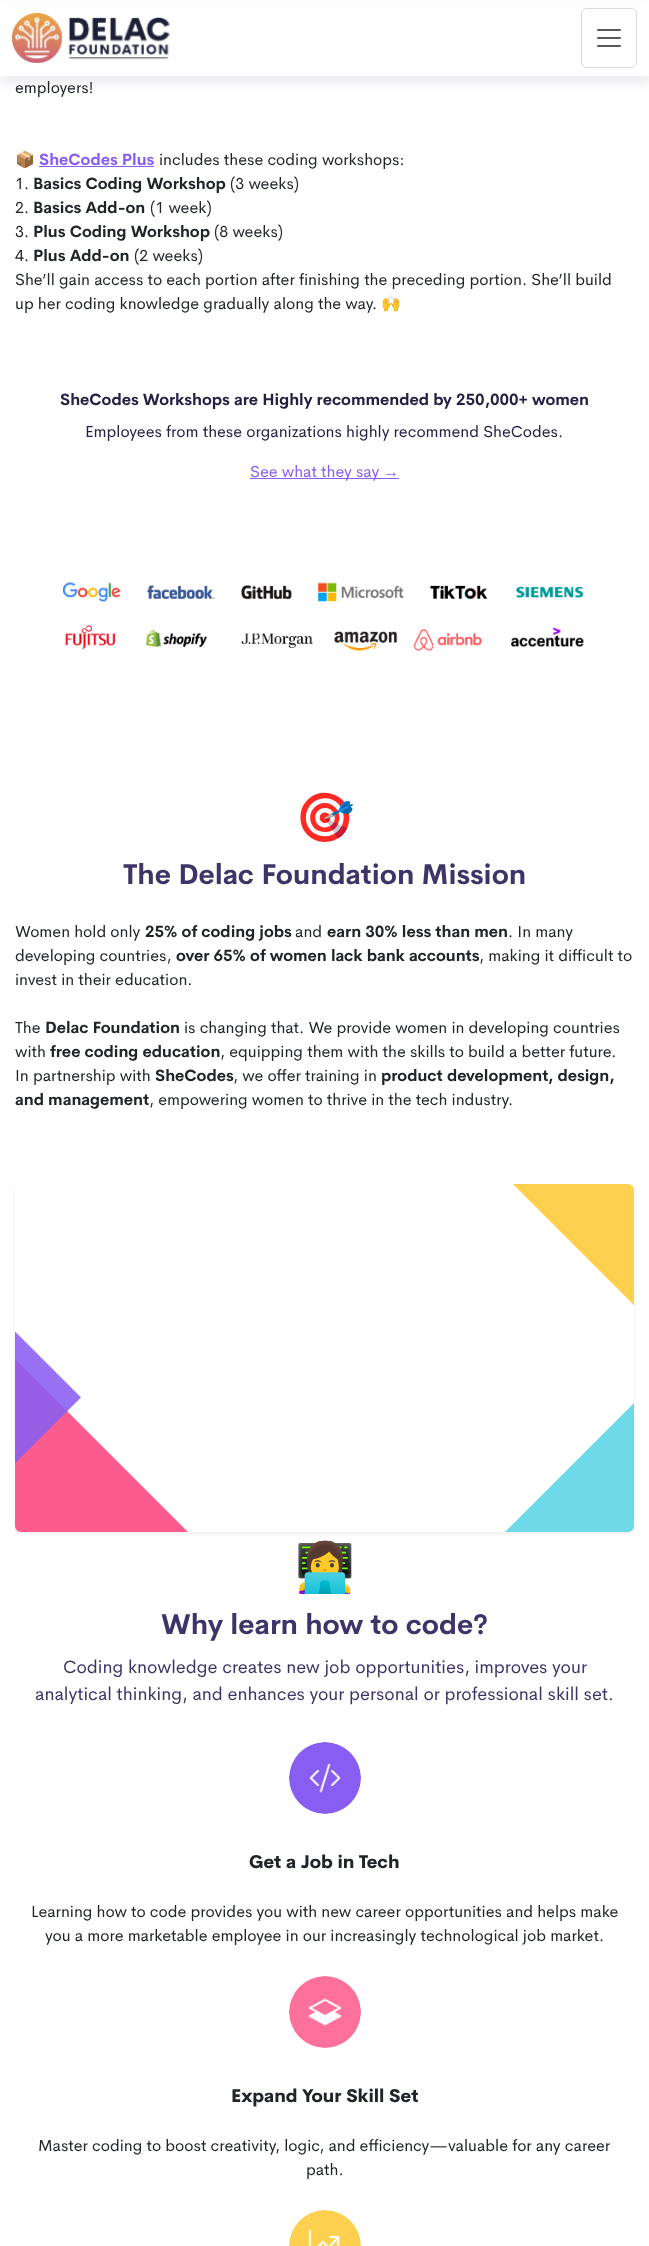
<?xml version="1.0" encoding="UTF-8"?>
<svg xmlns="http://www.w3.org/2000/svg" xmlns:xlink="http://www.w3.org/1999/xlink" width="649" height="2246">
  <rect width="100%" height="100%" fill="#ffffff" />
  <rect y="8" width="649" height="76" fill="#252759" fill-opacity="0.08" filter="blur(4px)" />
  <rect y="4" width="649" height="72" fill="#ffffff" />
  <image x="12" y="13" width="158" height="50" xlink:href="image1.png" />
  <rect x="581.5" y="8.5" width="55" height="59" rx="5.5" fill="none" stroke="#d9d9d9" />
  <image x="597" y="29" width="24" height="18" xlink:href="image2.png" />
  <rect x="39" y="166" width="115" height="1" fill="#885df1" />
  <rect x="250" y="478" width="149" height="1" fill="#885df1" />
  <image x="63" y="582" width="521" height="69" xlink:href="image3.png" />
  <rect x="15" y="1186" width="619" height="348" rx="6" fill="#000000" fill-opacity="0.07" filter="blur(2px)" />
  <rect x="15" y="1184" width="619" height="348" rx="6" fill="#ffffff" />
  <image x="15" y="1184" width="619" height="348" xlink:href="image4.png" />
  <image x="289" y="1742" width="72" height="72" xlink:href="image5.png" />
  <image x="289" y="1976" width="72" height="72" xlink:href="image6.png" />
  <image x="289" y="2210" width="72" height="36" xlink:href="image7.png" />
  <text x="15" y="93" style="font-family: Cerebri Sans; font-size: 16px; fill: #212529">employers!</text>
  <text x="15" y="165" style="font-family: Noto Color Emoji; font-size: 16px; fill: #212529">📦</text>
  <text x="39" y="165" style="font-family: Cerebri Sans; font-size: 16px; font-weight: bold; fill: #885df1">SheCodes Plus</text>
  <text x="159" y="165" style="font-family: Cerebri Sans; font-size: 16px; fill: #212529">includes these coding workshops:</text>
  <text x="15" y="189" style="font-family: Cerebri Sans; font-size: 16px; fill: #212529">1.</text>
  <text x="33" y="189" style="font-family: Cerebri Sans; font-size: 16px; font-weight: bold; fill: #212529">Basics Coding Workshop</text>
  <text x="230" y="189" style="font-family: Cerebri Sans; font-size: 16px; fill: #212529">(3 weeks)</text>
  <text x="15" y="213" style="font-family: Cerebri Sans; font-size: 16px; fill: #212529">2.</text>
  <text x="33" y="213" style="font-family: Cerebri Sans; font-size: 16px; font-weight: bold; fill: #212529">Basics Add-on</text>
  <text x="150" y="213" style="font-family: Cerebri Sans; font-size: 16px; fill: #212529">(1 week)</text>
  <text x="15" y="237" style="font-family: Cerebri Sans; font-size: 16px; fill: #212529">3.</text>
  <text x="33" y="237" style="font-family: Cerebri Sans; font-size: 16px; font-weight: bold; fill: #212529">Plus Coding Workshop</text>
  <text x="214" y="237" style="font-family: Cerebri Sans; font-size: 16px; fill: #212529">(8 weeks)</text>
  <text x="15" y="261" style="font-family: Cerebri Sans; font-size: 16px; fill: #212529">4.</text>
  <text x="33" y="261" style="font-family: Cerebri Sans; font-size: 16px; font-weight: bold; fill: #212529">Plus Add-on</text>
  <text x="134" y="261" style="font-family: Cerebri Sans; font-size: 16px; fill: #212529">(2 weeks)</text>
  <text x="15" y="285" style="font-family: Cerebri Sans; font-size: 16px; fill: #212529">She’ll gain access to each portion after finishing the preceding portion. She’ll build</text>
  <text x="15" y="309" style="font-family: Cerebri Sans; font-size: 16px; fill: #212529">up her coding knowledge gradually along the way.</text>
  <text x="381" y="309" style="font-family: Noto Color Emoji; font-size: 16px; fill: #212529">🙌</text>
  <text x="60" y="405" style="font-family: Cerebri Sans; font-size: 16px; font-weight: bold; fill: #272044">SheCodes Workshops are Highly recommended by 250,000+ women</text>
  <text x="85" y="437" style="font-family: Cerebri Sans; font-size: 16px; fill: #272044">Employees from these organizations highly recommend SheCodes.</text>
  <text x="250" y="477" style="font-family: Cerebri Sans; font-size: 16px; fill: #885df1">See what they say</text>
  <text x="383" y="477" style="font-family: Liberation Serif; font-size: 16px; fill: #885df1">→</text>
  <text x="295" y="834" style="font-family: Noto Color Emoji; font-size: 48px; fill: #212529">🎯</text>
  <text x="123" y="884" style="font-family: Cerebri Sans; font-size: 28px; font-weight: bold; fill: #3e3468">The Delac Foundation Mission</text>
  <text x="15" y="937" style="font-family: Cerebri Sans; font-size: 16px; fill: #212529">Women hold only</text>
  <text x="145" y="937" style="font-family: Cerebri Sans; font-size: 16px; font-weight: bold; fill: #212529">25% of coding jobs</text>
  <text x="295" y="937" style="font-family: Cerebri Sans; font-size: 16px; fill: #212529">and</text>
  <text x="327" y="937" style="font-family: Cerebri Sans; font-size: 16px; font-weight: bold; fill: #212529">earn 30% less than men</text>
  <text x="508" y="937" style="font-family: Cerebri Sans; font-size: 16px; fill: #212529">. In many</text>
  <text x="15" y="961" style="font-family: Cerebri Sans; font-size: 16px; fill: #212529">developing countries,</text>
  <text x="176" y="961" style="font-family: Cerebri Sans; font-size: 16px; font-weight: bold; fill: #212529">over 65% of women lack bank accounts</text>
  <text x="479" y="961" style="font-family: Cerebri Sans; font-size: 16px; fill: #212529">, making it difficult to</text>
  <text x="15" y="985" style="font-family: Cerebri Sans; font-size: 16px; fill: #212529">invest in their education.</text>
  <text x="15" y="1033" style="font-family: Cerebri Sans; font-size: 16px; fill: #212529">The</text>
  <text x="45" y="1033" style="font-family: Cerebri Sans; font-size: 16px; font-weight: bold; fill: #212529">Delac Foundation</text>
  <text x="184" y="1033" style="font-family: Cerebri Sans; font-size: 16px; fill: #212529">is changing that. We provide women in developing countries</text>
  <text x="15" y="1057" style="font-family: Cerebri Sans; font-size: 16px; fill: #212529">with</text>
  <text x="50" y="1057" style="font-family: Cerebri Sans; font-size: 16px; font-weight: bold; fill: #212529">free coding education</text>
  <text x="220" y="1057" style="font-family: Cerebri Sans; font-size: 16px; fill: #212529">, equipping them with the skills to build a better future.</text>
  <text x="15" y="1081" style="font-family: Cerebri Sans; font-size: 16px; fill: #212529">In partnership with</text>
  <text x="155" y="1081" style="font-family: Cerebri Sans; font-size: 16px; font-weight: bold; fill: #212529">SheCodes</text>
  <text x="233" y="1081" style="font-family: Cerebri Sans; font-size: 16px; fill: #212529">, we offer training in</text>
  <text x="381" y="1081" style="font-family: Cerebri Sans; font-size: 16px; font-weight: bold; fill: #212529">product development, design,</text>
  <text x="15" y="1105" style="font-family: Cerebri Sans; font-size: 16px; font-weight: bold; fill: #212529">and management</text>
  <text x="149" y="1105" style="font-family: Cerebri Sans; font-size: 16px; fill: #212529">, empowering women to thrive in the tech industry.</text>
  <text x="295" y="1584" style="font-family: Noto Color Emoji; font-size: 48px; fill: #212529">👩‍💻</text>
  <text x="161" y="1634" style="font-family: Cerebri Sans; font-size: 28px; font-weight: bold; fill: #3e3468">Why learn how to code?</text>
  <text x="63" y="1673" style="font-family: Cerebri Sans; font-size: 18px; fill: #3e3468">Coding knowledge creates new job opportunities, improves your</text>
  <text x="35" y="1700" style="font-family: Cerebri Sans; font-size: 18px; fill: #3e3468">analytical thinking, and enhances your personal or professional skill set.</text>
  <text x="249" y="1868" style="font-family: Cerebri Sans; font-size: 18px; font-weight: 800; fill: #212529">Get a Job in Tech</text>
  <text x="31" y="1917" style="font-family: Cerebri Sans; font-size: 16px; fill: #212529">Learning how to code provides you with new career opportunities and helps make</text>
  <text x="45" y="1941" style="font-family: Cerebri Sans; font-size: 16px; fill: #212529">you a more marketable employee in our increasingly technological job market.</text>
  <text x="231" y="2102" style="font-family: Cerebri Sans; font-size: 18px; font-weight: 800; fill: #212529">Expand Your Skill Set</text>
  <text x="38" y="2151" style="font-family: Cerebri Sans; font-size: 16px; fill: #212529">Master coding to boost creativity, logic, and efficiency—valuable for any career</text>
  <text x="306" y="2175" style="font-family: Cerebri Sans; font-size: 16px; fill: #212529">path.</text>
</svg>
